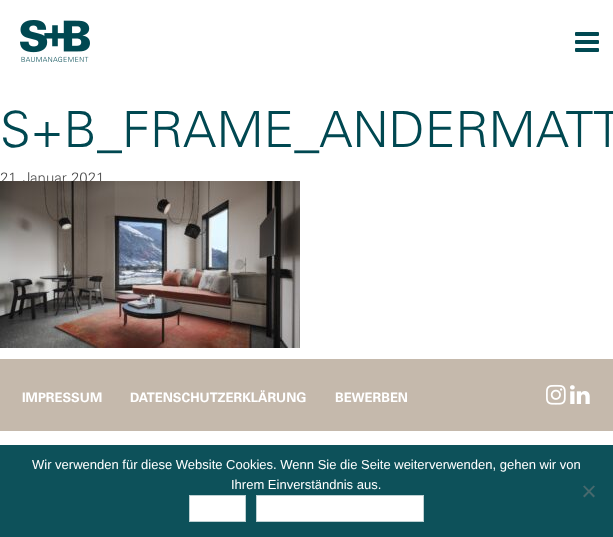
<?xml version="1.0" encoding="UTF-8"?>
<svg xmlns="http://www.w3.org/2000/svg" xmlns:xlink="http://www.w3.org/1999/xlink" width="613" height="537">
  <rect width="100%" height="100%" fill="#ffffff" />
  <image x="20" y="20" width="70" height="42" xlink:href="image1.png" />
  <rect x="575" y="32" width="24" height="4" rx="1" fill="#004851" />
  <rect x="575" y="40" width="24" height="4" rx="1" fill="#004851" />
  <rect x="575" y="48" width="24" height="4" rx="1" fill="#004851" />
  <rect y="359" width="613" height="72" fill="#c5b9ac" />
  <image x="546" y="384" width="20" height="21" xlink:href="image3.png" />
  <image x="570" y="385" width="20" height="19" xlink:href="image4.png" />
  <rect y="445" width="613" height="92" fill="#0d515a" />
  <path d="M 593.5 485.5 l 1.5 1 l -10.5 11 l -1.5 -1.5 z" fill="#47696d" />
  <path d="M 583 486.5 l 1.5 -1 l 10.5 10.5 l -1.5 1.5 z" fill="#47696d" />
  <rect x="189.5" y="495.5" width="56" height="26" fill="#ffffff" stroke="#bed1d3" />
  <rect x="256.5" y="495.5" width="167" height="26" fill="#ffffff" stroke="#bed1d3" />
  <text x="0" y="147" style="font-family: Univers; font-size: 50px; font-weight: 300; fill: #004851">S+B_FRAME_ANDERMATT</text>
  <text x="0" y="183" style="font-family: Univers; font-size: 15px; font-weight: 300; fill: #4c4c4c">21. Januar 2021</text>
  <image x="0" y="181" width="300" height="167" xlink:href="image2.png" />
  <text x="22" y="402" style="font-family: Univers; font-size: 13px; font-weight: bold; fill: #ffffff">IMPRESSUM</text>
  <text x="130" y="402" style="font-family: Univers; font-size: 13px; font-weight: bold; fill: #ffffff">DATENSCHUTZERKLÄRUNG</text>
  <text x="335" y="402" style="font-family: Univers; font-size: 13px; font-weight: bold; fill: #ffffff">BEWERBEN</text>
  <text x="32" y="469" style="font-family: Liberation Sans; font-size: 13px; fill: #ffffff">Wir verwenden für diese Website Cookies. Wenn Sie die Seite weiterverwenden, gehen wir von</text>
  <text x="231" y="489" style="font-family: Liberation Sans; font-size: 13px; fill: #ffffff">Ihrem Einverständnis aus.</text>
</svg>
